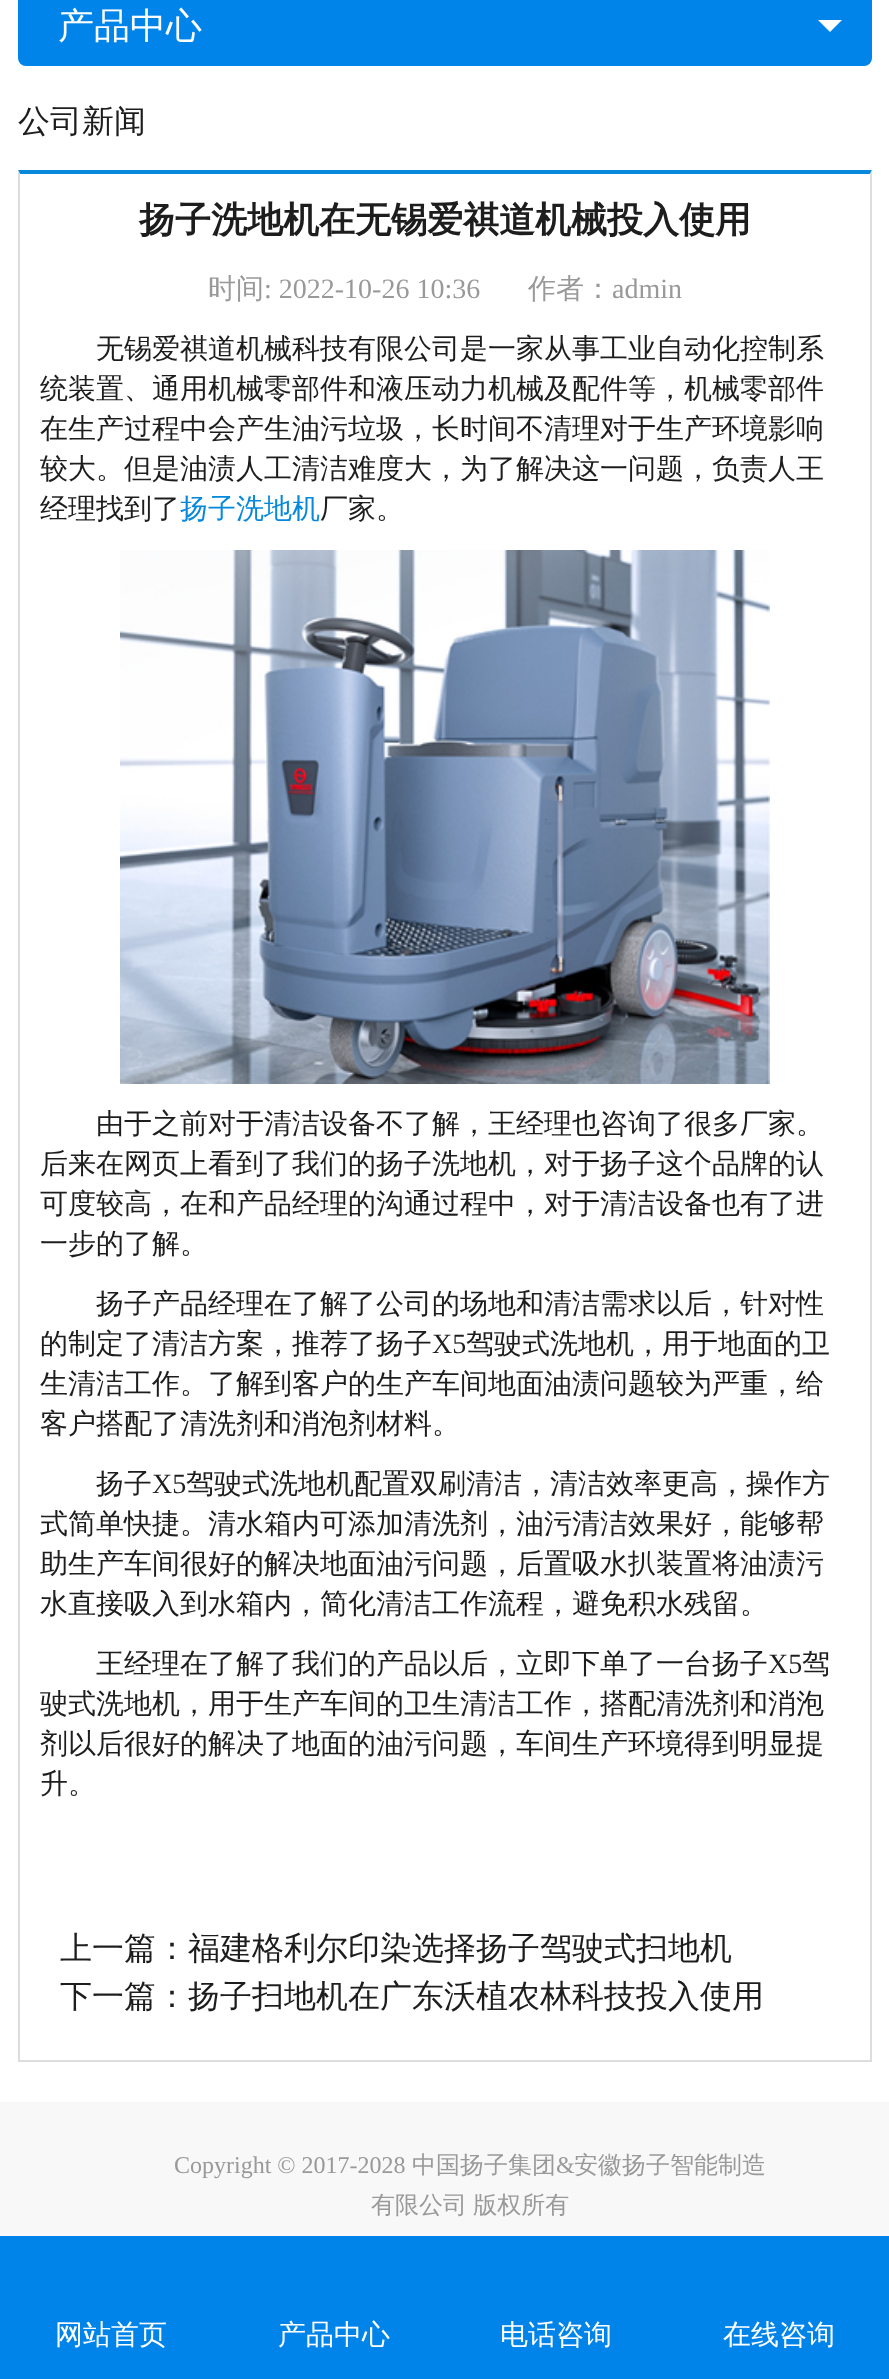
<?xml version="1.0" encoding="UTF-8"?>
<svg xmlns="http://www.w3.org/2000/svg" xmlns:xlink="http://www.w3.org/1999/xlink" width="889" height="2379">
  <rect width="100%" height="100%" fill="#ffffff" />
  <rect x="18" y="-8" width="854" height="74" rx="8" fill="#0084e9" />
  <path d="M 818 20 h 24 l -12 12 z" fill="#ffffff" />
  <path d="M 18 170 h 854 l -2 4 h -850 z" fill="#0689db" />
  <path d="M 872 170 v 1892 l -2 -2 v -1886 z" fill="#dddddd" />
  <rect x="18" y="2060" width="854" height="2" fill="#dddddd" />
  <path d="M 18 2062 v -1892 l 2 4 v 1886 z" fill="#dddddd" />
  <image x="120" y="550" width="650" height="534" xlink:href="image1.png" />
  <rect y="2102" width="889" height="134" fill="#f8f8f8" />
  <rect y="2236" width="889" height="143" fill="#0084e9" />
  <text x="58" y="38" style="font-family: WenQuanYi Zen Hei; font-size: 36px; font-weight: 500; fill: #ffffff">产品中心</text>
  <text x="18" y="132" style="font-family: WenQuanYi Zen Hei; font-size: 32px; font-weight: 500; fill: #1d1d1d">公司新闻</text>
  <text x="139" y="232" style="font-family: WenQuanYi Zen Hei; font-size: 36px; font-weight: bold; fill: #1d1d1d">扬子洗地机在无锡爱祺道机械投入使用</text>
  <text x="208" y="298" style="font-family: WenQuanYi Zen Hei; font-size: 28px; font-weight: 500; fill: #999999">时间</text>
  <text x="264" y="298" style="font-family: Liberation Serif; font-size: 28px; fill: #999999">: 2022-10-26 10:36</text>
  <text x="528" y="298" style="font-family: WenQuanYi Zen Hei; font-size: 28px; font-weight: 500; fill: #999999">作者：</text>
  <text x="612" y="298" style="font-family: Liberation Serif; font-size: 28px; fill: #999999">admin</text>
  <text x="96" y="358" style="font-family: WenQuanYi Zen Hei; font-size: 28px; font-weight: 500; fill: #1d1d1d">无锡爱祺道机械科技有限公司是一家从事工业自动化控制系</text>
  <text x="40" y="398" style="font-family: WenQuanYi Zen Hei; font-size: 28px; font-weight: 500; fill: #1d1d1d">统装置、通用机械零部件和液压动力机械及配件等，机械零部件</text>
  <text x="40" y="438" style="font-family: WenQuanYi Zen Hei; font-size: 28px; font-weight: 500; fill: #1d1d1d">在生产过程中会产生油污垃圾，长时间不清理对于生产环境影响</text>
  <text x="40" y="478" style="font-family: WenQuanYi Zen Hei; font-size: 28px; font-weight: 500; fill: #1d1d1d">较大。但是油渍人工清洁难度大，为了解决这一问题，负责人王</text>
  <text x="40" y="518" style="font-family: WenQuanYi Zen Hei; font-size: 28px; font-weight: 500; fill: #1d1d1d">经理找到了</text>
  <text x="180" y="518" style="font-family: WenQuanYi Zen Hei; font-size: 28px; font-weight: 500; fill: #0689db">扬子洗地机</text>
  <text x="320" y="518" style="font-family: WenQuanYi Zen Hei; font-size: 28px; font-weight: 500; fill: #1d1d1d">厂家。</text>
  <text x="96" y="1133" style="font-family: WenQuanYi Zen Hei; font-size: 28px; font-weight: 500; fill: #1d1d1d">由于之前对于清洁设备不了解，王经理也咨询了很多厂家。</text>
  <text x="40" y="1173" style="font-family: WenQuanYi Zen Hei; font-size: 28px; font-weight: 500; fill: #1d1d1d">后来在网页上看到了我们的扬子洗地机，对于扬子这个品牌的认</text>
  <text x="40" y="1213" style="font-family: WenQuanYi Zen Hei; font-size: 28px; font-weight: 500; fill: #1d1d1d">可度较高，在和产品经理的沟通过程中，对于清洁设备也有了进</text>
  <text x="40" y="1253" style="font-family: WenQuanYi Zen Hei; font-size: 28px; font-weight: 500; fill: #1d1d1d">一步的了解。</text>
  <text x="96" y="1313" style="font-family: WenQuanYi Zen Hei; font-size: 28px; font-weight: 500; fill: #1d1d1d">扬子产品经理在了解了公司的场地和清洁需求以后，针对性</text>
  <text x="40" y="1353" style="font-family: WenQuanYi Zen Hei; font-size: 28px; font-weight: 500; fill: #1d1d1d">的制定了清洁方案，推荐了扬子</text>
  <text x="432" y="1353" style="font-family: Liberation Serif; font-size: 28px; fill: #1d1d1d">X5</text>
  <text x="466" y="1353" style="font-family: WenQuanYi Zen Hei; font-size: 28px; font-weight: 500; fill: #1d1d1d">驾驶式洗地机，用于地面的卫</text>
  <text x="40" y="1393" style="font-family: WenQuanYi Zen Hei; font-size: 28px; font-weight: 500; fill: #1d1d1d">生清洁工作。了解到客户的生产车间地面油渍问题较为严重，给</text>
  <text x="40" y="1433" style="font-family: WenQuanYi Zen Hei; font-size: 28px; font-weight: 500; fill: #1d1d1d">客户搭配了清洗剂和消泡剂材料。</text>
  <text x="96" y="1493" style="font-family: WenQuanYi Zen Hei; font-size: 28px; font-weight: 500; fill: #1d1d1d">扬子</text>
  <text x="152" y="1493" style="font-family: Liberation Serif; font-size: 28px; fill: #1d1d1d">X5</text>
  <text x="186" y="1493" style="font-family: WenQuanYi Zen Hei; font-size: 28px; font-weight: 500; fill: #1d1d1d">驾驶式洗地机配置双刷清洁，清洁效率更高，操作方</text>
  <text x="40" y="1533" style="font-family: WenQuanYi Zen Hei; font-size: 28px; font-weight: 500; fill: #1d1d1d">式简单快捷。清水箱内可添加清洗剂，油污清洁效果好，能够帮</text>
  <text x="40" y="1573" style="font-family: WenQuanYi Zen Hei; font-size: 28px; font-weight: 500; fill: #1d1d1d">助生产车间很好的解决地面油污问题，后置吸水扒装置将油渍污</text>
  <text x="40" y="1613" style="font-family: WenQuanYi Zen Hei; font-size: 28px; font-weight: 500; fill: #1d1d1d">水直接吸入到水箱内，简化清洁工作流程，避免积水残留。</text>
  <text x="96" y="1673" style="font-family: WenQuanYi Zen Hei; font-size: 28px; font-weight: 500; fill: #1d1d1d">王经理在了解了我们的产品以后，立即下单了一台扬子</text>
  <text x="768" y="1673" style="font-family: Liberation Serif; font-size: 28px; fill: #1d1d1d">X5</text>
  <text x="802" y="1673" style="font-family: WenQuanYi Zen Hei; font-size: 28px; font-weight: 500; fill: #1d1d1d">驾</text>
  <text x="40" y="1713" style="font-family: WenQuanYi Zen Hei; font-size: 28px; font-weight: 500; fill: #1d1d1d">驶式洗地机，用于生产车间的卫生清洁工作，搭配清洗剂和消泡</text>
  <text x="40" y="1753" style="font-family: WenQuanYi Zen Hei; font-size: 28px; font-weight: 500; fill: #1d1d1d">剂以后很好的解决了地面的油污问题，车间生产环境得到明显提</text>
  <text x="40" y="1793" style="font-family: WenQuanYi Zen Hei; font-size: 28px; font-weight: 500; fill: #1d1d1d">升。</text>
  <text x="60" y="1959" style="font-family: WenQuanYi Zen Hei; font-size: 32px; font-weight: 500; fill: #1d1d1d">上一篇：福建格利尔印染选择扬子驾驶式扫地机</text>
  <text x="60" y="2007" style="font-family: WenQuanYi Zen Hei; font-size: 32px; font-weight: 500; fill: #1d1d1d">下一篇：扬子扫地机在广东沃植农林科技投入使用</text>
  <text x="174" y="2173" style="font-family: Liberation Serif; font-size: 24px; fill: #999999">Copyright © 2017-2028</text>
  <text x="412" y="2173" style="font-family: WenQuanYi Zen Hei; font-size: 24px; font-weight: 500; fill: #999999">中国扬子集团</text>
  <text x="556" y="2173" style="font-family: Liberation Serif; font-size: 24px; fill: #999999">&amp;</text>
  <text x="574" y="2173" style="font-family: WenQuanYi Zen Hei; font-size: 24px; font-weight: 500; fill: #999999">安徽扬子智能制造</text>
  <text x="371" y="2213" word-spacing="-1" style="font-family: WenQuanYi Zen Hei; font-size: 24px; font-weight: 500; fill: #999999">有限公司 版权所有</text>
  <text x="55" y="2344" style="font-family: WenQuanYi Zen Hei; font-size: 28px; font-weight: 500; fill: #ffffff">网站首页</text>
  <text x="278" y="2344" style="font-family: WenQuanYi Zen Hei; font-size: 28px; font-weight: 500; fill: #ffffff">产品中心</text>
  <text x="500" y="2344" style="font-family: WenQuanYi Zen Hei; font-size: 28px; font-weight: 500; fill: #ffffff">电话咨询</text>
  <text x="723" y="2344" style="font-family: WenQuanYi Zen Hei; font-size: 28px; font-weight: 500; fill: #ffffff">在线咨询</text>
</svg>
